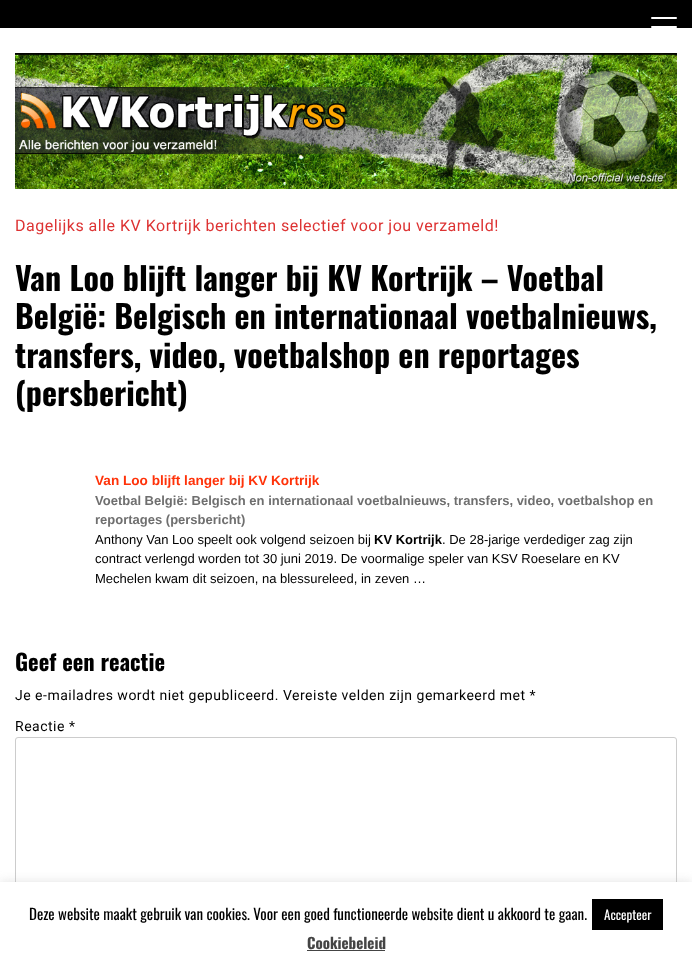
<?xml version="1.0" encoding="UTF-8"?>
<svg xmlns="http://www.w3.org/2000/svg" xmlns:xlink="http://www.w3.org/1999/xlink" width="692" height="965">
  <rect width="100%" height="100%" fill="#ffffff" />
  <rect width="692" height="28" fill="#000000" />
  <rect x="651" y="26" width="26" height="2" rx="1" fill="#ffffff" />
  <rect x="651" y="17" width="26" height="2" rx="1" fill="#ffffff" />
  <image x="15" y="53" width="662" height="136" xlink:href="image1.png" />
  <rect x="15.5" y="737.5" width="661" height="209" rx="2.5" fill="none" stroke="#cccccc" />
  <rect y="881" width="692" height="83" fill="#acabab" fill-opacity="0.3" filter="blur(5px)" />
  <rect y="882" width="692" height="83" fill="#ffffff" />
  <rect x="592" y="899" width="71" height="31" fill="#000000" />
  <rect x="307" y="950" width="78" height="1" fill="#444444" />
  <text x="15" y="231" style="font-family: Roboto; font-size: 16px; letter-spacing: 0.5px; fill: #dd3333">Dagelijks alle KV Kortrijk berichten selectief voor jou verzameld!</text>
  <text x="15" y="291" style="font-family: Oswald; font-size: 32px; font-weight: bold; fill: #000000">Van Loo blijft langer bij KV Kortrijk – Voetbal</text>
  <text x="15" y="329" style="font-family: Oswald; font-size: 32px; font-weight: bold; fill: #000000">België: Belgisch en internationaal voetbalnieuws,</text>
  <text x="15" y="368" style="font-family: Oswald; font-size: 32px; font-weight: bold; fill: #000000">transfers, video, voetbalshop en reportages</text>
  <text x="15" y="406" style="font-family: Oswald; font-size: 32px; font-weight: bold; fill: #000000">(persbericht)</text>
  <text x="95" y="485" style="font-family: Liberation Sans; font-size: 13.6px; font-weight: bold; fill: #ff3209">Van Loo blijft langer bij KV Kortrijk</text>
  <text x="95" y="505" style="font-family: Liberation Sans; font-size: 13px; font-weight: bold; fill: #6f6f6f">Voetbal België: Belgisch en internationaal voetbalnieuws, transfers, video, voetbalshop en</text>
  <text x="95" y="524" style="font-family: Liberation Sans; font-size: 13px; font-weight: bold; fill: #6f6f6f">reportages (persbericht)</text>
  <text x="95" y="544" style="font-family: Liberation Sans; font-size: 13px; fill: #000000">Anthony Van Loo speelt ook volgend seizoen bij</text>
  <text x="374" y="544" style="font-family: Liberation Sans; font-size: 13px; font-weight: bold; fill: #000000">KV Kortrijk</text>
  <text x="442" y="544" style="font-family: Liberation Sans; font-size: 13px; fill: #000000">. De 28-jarige verdediger zag zijn</text>
  <text x="95" y="563" style="font-family: Liberation Sans; font-size: 13px; fill: #000000">contract verlengd worden tot 30 juni 2019. De voormalige speler van KSV Roeselare en KV</text>
  <text x="95" y="583" style="font-family: Liberation Sans; font-size: 13px; fill: #000000">Mechelen kwam dit seizoen, na blessureleed, in zeven …</text>
  <text x="15" y="671" style="font-family: Oswald; font-size: 22.5px; font-weight: bold; fill: #000000">Geef een reactie</text>
  <text x="15" y="700" style="font-family: Roboto; font-size: 14px; letter-spacing: 0.5px; fill: #000000">Je e-mailadres wordt niet gepubliceerd. Vereiste velden zijn gemarkeerd met *</text>
  <text x="15" y="731" style="font-family: Roboto; font-size: 14px; letter-spacing: 0.5px; fill: #000000">Reactie *</text>
  <text x="29" y="920" style="font-family: Oswald; font-size: 15px; fill: #000000">Deze website maakt gebruik van cookies. Voor een goed functioneerde website dient u akkoord te gaan.</text>
  <text x="604" y="920" style="font-family: Oswald; font-size: 13px; fill: #ffffff">Accepteer</text>
  <text x="307" y="949" style="font-family: Oswald; font-size: 15px; font-weight: bold; fill: #444444">Cookiebeleid</text>
</svg>
